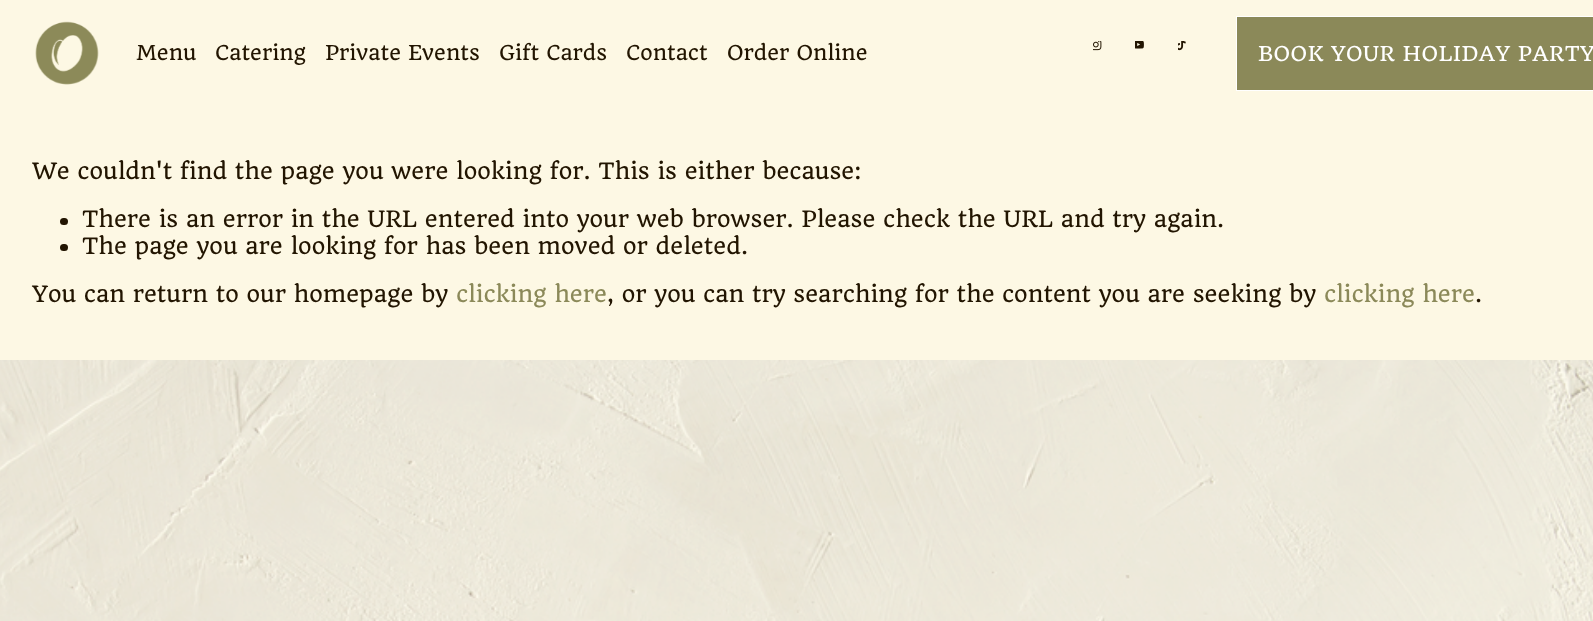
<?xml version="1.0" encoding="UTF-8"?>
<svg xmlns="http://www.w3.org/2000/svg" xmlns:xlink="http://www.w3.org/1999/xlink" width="1593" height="621">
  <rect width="100%" height="100%" fill="#fdf8e4" />
  <image x="35" y="21" width="64" height="64" xlink:href="image1.png" />
  <image x="1093" y="41" width="9" height="10" xlink:href="image2.png" />
  <image x="1135" y="41" width="9" height="8" xlink:href="image3.png" />
  <image x="1178" y="41" width="8" height="10" xlink:href="image4.png" />
  <rect x="1236.5" y="16.5" width="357" height="74" fill="#8b8959" stroke="#ffffff" />
  <rect x="60" y="218" width="8" height="7" rx="3.5" fill="#221501" />
  <rect x="60" y="244" width="8" height="7" rx="3.5" fill="#221501" />
  <image x="0" y="360" width="1593" height="261" xlink:href="image5.png" />
  <text x="136" y="60" style="font-family: Quando; font-size: 20px; fill: #221501">Menu</text>
  <text x="215" y="60" style="font-family: Quando; font-size: 20px; fill: #221501">Catering</text>
  <text x="325" y="60" style="font-family: Quando; font-size: 20px; fill: #221501">Private Events</text>
  <text x="499" y="60" style="font-family: Quando; font-size: 20px; fill: #221501">Gift Cards</text>
  <text x="626" y="60" style="font-family: Quando; font-size: 20px; fill: #221501">Contact</text>
  <text x="727" y="60" style="font-family: Quando; font-size: 20px; fill: #221501">Order Online</text>
  <text x="1258" y="61" style="font-family: Quando; font-size: 20px; letter-spacing: 0.4px; fill: #ffffff">BOOK YOUR HOLIDAY PARTY</text>
  <text x="32" y="179" style="font-family: Quando; font-size: 21.9px; fill: #221501">We couldn't find the page you were looking for. This is either because:</text>
  <text x="82" y="227" style="font-family: Quando; font-size: 21.9px; fill: #221501">There is an error in the URL entered into your web browser. Please check the URL and try again.</text>
  <text x="82" y="254" style="font-family: Quando; font-size: 21.9px; fill: #221501">The page you are looking for has been moved or deleted.</text>
  <text x="32" y="302" style="font-family: Quando; font-size: 21.9px; fill: #221501">You can return to our homepage by</text>
  <text x="456" y="302" style="font-family: Quando; font-size: 21.9px; fill: #8b8959">clicking here</text>
  <text x="607" y="302" style="font-family: Quando; font-size: 21.9px; fill: #221501">, or you can try searching for the</text>
  <text x="1002" y="302" style="font-family: Quando; font-size: 21.9px; fill: #221501">content you are seeking by</text>
  <text x="1324" y="302" style="font-family: Quando; font-size: 21.9px; fill: #8b8959">clicking here</text>
  <text x="1475" y="302" style="font-family: Quando; font-size: 21.9px; fill: #221501">.</text>
</svg>
